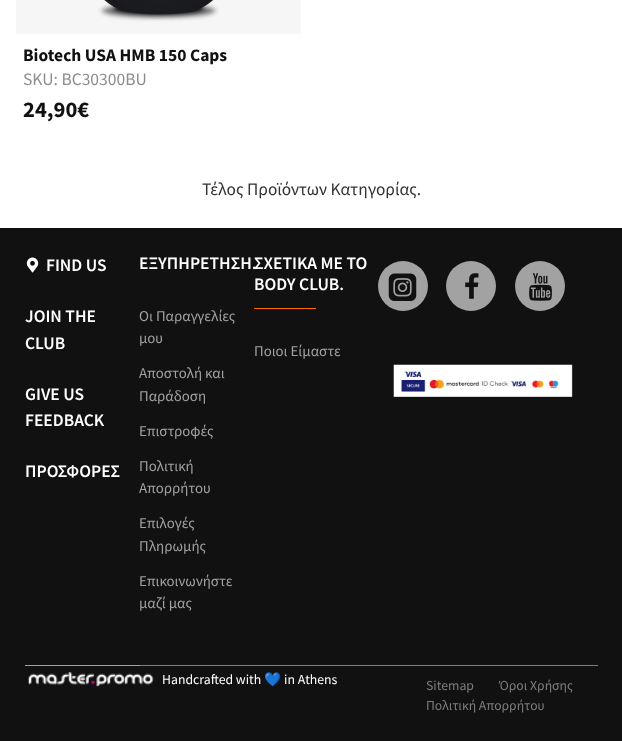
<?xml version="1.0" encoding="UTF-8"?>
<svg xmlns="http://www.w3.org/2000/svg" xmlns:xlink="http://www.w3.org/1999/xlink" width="622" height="741">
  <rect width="100%" height="100%" fill="#ffffff" />
  <rect x="16" width="285" height="34" fill="#f6f6f6" />
  <image x="98" y="0" width="121" height="22" xlink:href="image1.png" />
  <rect y="228" width="622" height="513" fill="#111111" />
  <rect x="25" y="665" width="115" height="1" fill="#a2a2a2" />
  <image x="26" y="257" width="13" height="16" xlink:href="image2.png" />
  <rect x="140" y="665" width="458" height="1" fill="#7e7e7e" />
  <rect x="254" y="308" width="62" height="1" fill="#ff6600" />
  <circle cx="403" cy="286" r="25" fill="#a2a2a2" />
  <image x="388" y="273" width="29" height="28" xlink:href="image3.png" />
  <circle cx="471" cy="286" r="25" fill="#a2a2a2" />
  <image x="465" y="273" width="14" height="26" xlink:href="image4.png" />
  <circle cx="540" cy="286" r="25" fill="#a2a2a2" />
  <image x="529" y="273" width="23" height="28" xlink:href="image5.png" />
  <image x="393" y="364" width="180" height="33" xlink:href="image6.png" />
  <image x="28" y="672" width="126" height="15" xlink:href="image7.png" />
  <text x="23" y="61" style="font-family: Source Sans Pro; font-size: 17.5px; font-weight: bold; fill: #111111">Biotech USA HMB 150 Caps</text>
  <text x="23" y="85" style="font-family: Source Sans Pro; font-size: 17.5px; fill: #8d8d8d">SKU: BC30300BU</text>
  <text x="23" y="117" style="font-family: Source Sans Pro; font-size: 22.5px; font-weight: bold; fill: #111111">24,90€</text>
  <text x="202" y="195" style="font-family: Source Sans Pro; font-size: 17.5px; fill: #333333">Τέλος Προϊόντων Κατηγορίας.</text>
  <text x="46" y="271" style="font-family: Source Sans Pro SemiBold; font-size: 17.5px; font-weight: 600; fill: #ffffff">FIND US</text>
  <text x="25" y="322" style="font-family: Source Sans Pro SemiBold; font-size: 17.5px; font-weight: 600; fill: #ffffff">JOIN THE</text>
  <text x="25" y="349" style="font-family: Source Sans Pro SemiBold; font-size: 17.5px; font-weight: 600; fill: #ffffff">CLUB</text>
  <text x="25" y="400" style="font-family: Source Sans Pro SemiBold; font-size: 17.5px; font-weight: 600; fill: #ffffff">GIVE US</text>
  <text x="25" y="426" style="font-family: Source Sans Pro SemiBold; font-size: 17.5px; font-weight: 600; fill: #ffffff">FEEDBACK</text>
  <text x="25" y="477" style="font-family: Source Sans Pro SemiBold; font-size: 17.5px; font-weight: 600; fill: #ffffff">ΠΡΟΣΦΟΡΕΣ</text>
  <text x="139" y="269" style="font-family: Source Sans Pro SemiBold; font-size: 17.5px; font-weight: 600; fill: #ffffff">ΕΞΥΠΗΡΕΤΗΣΗ.</text>
  <text x="139" y="321" style="font-family: Source Sans Pro; font-size: 15px; fill: #a2a2a2">Οι Παραγγελίες</text>
  <text x="139" y="343" style="font-family: Source Sans Pro; font-size: 15px; fill: #a2a2a2">μου</text>
  <text x="139" y="378" style="font-family: Source Sans Pro; font-size: 15px; fill: #a2a2a2">Αποστολή και</text>
  <text x="139" y="401" style="font-family: Source Sans Pro; font-size: 15px; fill: #a2a2a2">Παράδοση</text>
  <text x="139" y="436" style="font-family: Source Sans Pro; font-size: 15px; fill: #a2a2a2">Επιστροφές</text>
  <text x="139" y="471" style="font-family: Source Sans Pro; font-size: 15px; fill: #a2a2a2">Πολιτική</text>
  <text x="139" y="493" style="font-family: Source Sans Pro; font-size: 15px; fill: #a2a2a2">Απορρήτου</text>
  <text x="139" y="528" style="font-family: Source Sans Pro; font-size: 15px; fill: #a2a2a2">Επιλογές</text>
  <text x="139" y="551" style="font-family: Source Sans Pro; font-size: 15px; fill: #a2a2a2">Πληρωμής</text>
  <text x="139" y="586" style="font-family: Source Sans Pro; font-size: 15px; fill: #a2a2a2">Επικοινωνήστε</text>
  <text x="139" y="608" style="font-family: Source Sans Pro; font-size: 15px; fill: #a2a2a2">μαζί μας</text>
  <text x="254" y="269" style="font-family: Source Sans Pro SemiBold; font-size: 17.5px; font-weight: 600; fill: #ffffff">ΣΧΕΤΙΚΑ ΜΕ ΤΟ</text>
  <text x="254" y="290" style="font-family: Source Sans Pro SemiBold; font-size: 17.5px; font-weight: 600; fill: #ffffff">BODY CLUB.</text>
  <text x="254" y="356" style="font-family: Source Sans Pro; font-size: 15px; fill: #a2a2a2">Ποιοι Είμαστε</text>
  <text x="162" y="684" style="font-family: Source Sans Pro; font-size: 13.75px; fill: #ffffff">Handcrafted with</text>
  <text x="264" y="684" style="font-family: Noto Color Emoji; font-size: 13.75px; fill: #ffffff">💙</text>
  <text x="284" y="684" style="font-family: Source Sans Pro; font-size: 13.75px; fill: #ffffff">in Athens</text>
  <text x="426" y="690" style="font-family: Source Sans Pro; font-size: 13.75px; fill: #7e7e7e">Sitemap</text>
  <text x="499" y="690" style="font-family: Source Sans Pro; font-size: 13.75px; fill: #7e7e7e">Όροι Χρήσης</text>
  <text x="426" y="710" style="font-family: Source Sans Pro; font-size: 13.75px; fill: #7e7e7e">Πολιτική Απορρήτου</text>
</svg>
